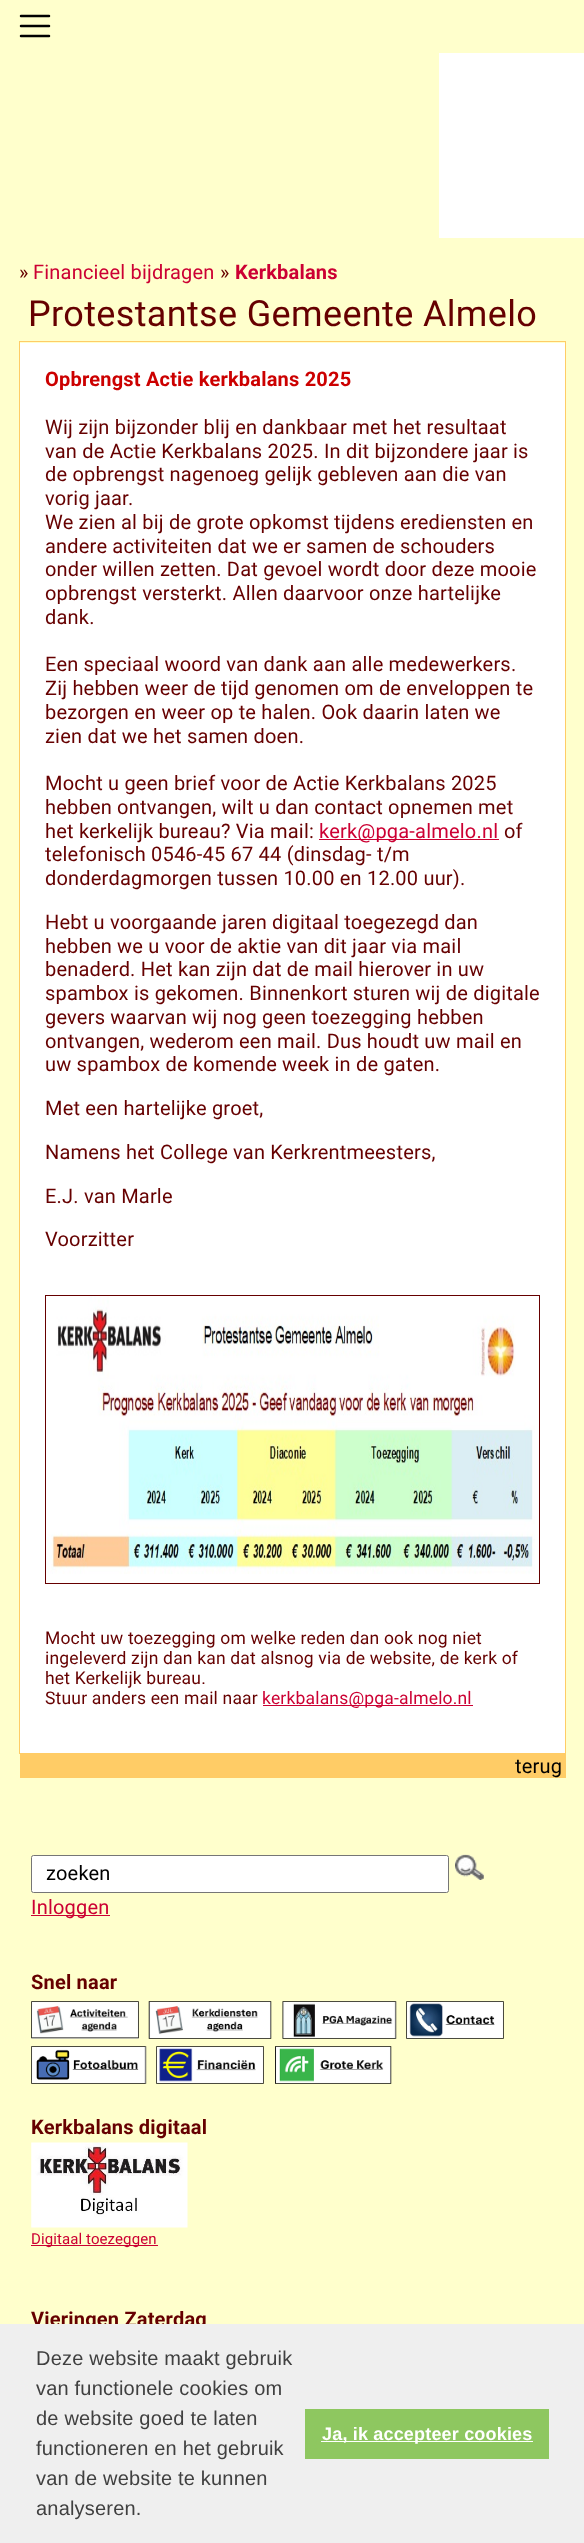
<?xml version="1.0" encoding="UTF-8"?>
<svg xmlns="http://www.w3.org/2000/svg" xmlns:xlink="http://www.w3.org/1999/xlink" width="584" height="2543">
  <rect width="100%" height="100%" fill="#ffffcc" />
  <path d="M 21 16 h 28 m -28 10 h 28 m -28 10 h 28" fill="none" stroke="#000000" stroke-width="2.5" stroke-linecap="round" />
  <rect x="439" y="53" width="145" height="185" fill="#ffffff" />
  <rect x="20" y="343" width="545" height="1410" fill="#ffffff" />
  <rect x="19" y="341" width="547" height="1" fill="#ffcc66" />
  <rect x="565" y="341" width="1" height="1413" fill="#ffcc66" />
  <rect x="19" y="1753" width="547" height="1" fill="#ffcc66" />
  <rect x="19" y="341" width="1" height="1413" fill="#ffcc66" />
  <rect x="319" y="839" width="180" height="1" fill="#cc0033" />
  <rect x="45.5" y="1295.5" width="494" height="288" fill="none" stroke="#660000" />
  <image x="46" y="1296" width="489" height="278" xlink:href="image1.png" />
  <rect x="263" y="1705" width="210" height="1" fill="#cc0033" />
  <rect x="20" y="1754" width="546" height="24" fill="#ffcc66" />
  <rect x="31.5" y="1855.5" width="417" height="37" rx="2" fill="#ffffff" stroke="#767676" />
  <image x="455" y="1854" width="29" height="26" xlink:href="image2.png" />
  <rect x="31" y="1915" width="79" height="1" fill="#cc0033" />
  <image x="31" y="2001" width="108" height="38" xlink:href="image3.png" />
  <image x="148" y="2001" width="124" height="38" xlink:href="image4.png" />
  <image x="282" y="2001" width="115" height="38" xlink:href="image5.png" />
  <image x="406" y="2001" width="98" height="38" xlink:href="image6.png" />
  <image x="31" y="2046" width="116" height="38" xlink:href="image7.png" />
  <image x="156" y="2046" width="108" height="38" xlink:href="image8.png" />
  <image x="275" y="2046" width="117" height="38" xlink:href="image9.png" />
  <image x="31" y="2142" width="157" height="86" xlink:href="image10.png" />
  <rect x="31" y="2245" width="127" height="1" fill="#cc0033" />
  <text x="19" y="279" style="font-family: Roboto; font-size: 20px; letter-spacing: 0.2px; fill: #660000">»</text>
  <text x="33" y="279" style="font-family: Roboto; font-size: 20px; letter-spacing: 0.2px; fill: #cc0033">Financieel bijdragen</text>
  <text x="220" y="279" style="font-family: Roboto; font-size: 20px; letter-spacing: 0.2px; fill: #660000">»</text>
  <text x="235" y="279" style="font-family: Roboto; font-size: 20px; font-weight: bold; letter-spacing: 0.2px; fill: #cc0033">Kerkbalans</text>
  <text x="28" y="326" style="font-family: Roboto; font-size: 36px; letter-spacing: 0.35px; fill: #660000">Protestantse Gemeente Almelo</text>
  <text x="45" y="386" style="font-family: Roboto; font-size: 20px; font-weight: bold; letter-spacing: 0.2px; fill: #cc0000">Opbrengst Actie kerkbalans 2025</text>
  <text x="45" y="434" style="font-family: Roboto; font-size: 20px; letter-spacing: 0.2px; fill: #660000">Wij zijn bijzonder blij en dankbaar met het resultaat</text>
  <text x="45" y="458" style="font-family: Roboto; font-size: 20px; letter-spacing: 0.2px; fill: #660000">van de Actie Kerkbalans 2025. In dit bijzondere jaar is</text>
  <text x="45" y="481" style="font-family: Roboto; font-size: 20px; letter-spacing: 0.2px; fill: #660000">de opbrengst nagenoeg gelijk gebleven aan die van</text>
  <text x="45" y="505" style="font-family: Roboto; font-size: 20px; letter-spacing: 0.2px; fill: #660000">vorig jaar.</text>
  <text x="45" y="529" style="font-family: Roboto; font-size: 20px; letter-spacing: 0.2px; fill: #660000">We zien al bij de grote opkomst tijdens erediensten en</text>
  <text x="45" y="553" style="font-family: Roboto; font-size: 20px; letter-spacing: 0.2px; fill: #660000">andere activiteiten dat we er samen de schouders</text>
  <text x="45" y="576" style="font-family: Roboto; font-size: 20px; letter-spacing: 0.2px; fill: #660000">onder willen zetten. Dat gevoel wordt door deze mooie</text>
  <text x="45" y="600" style="font-family: Roboto; font-size: 20px; letter-spacing: 0.2px; fill: #660000">opbrengst versterkt. Allen daarvoor onze hartelijke</text>
  <text x="45" y="624" style="font-family: Roboto; font-size: 20px; letter-spacing: 0.2px; fill: #660000">dank.</text>
  <text x="45" y="671" style="font-family: Roboto; font-size: 20px; letter-spacing: 0.2px; fill: #660000">Een speciaal woord van dank aan alle medewerkers.</text>
  <text x="45" y="695" style="font-family: Roboto; font-size: 20px; letter-spacing: 0.2px; fill: #660000">Zij hebben weer de tijd genomen om de enveloppen te</text>
  <text x="45" y="719" style="font-family: Roboto; font-size: 20px; letter-spacing: 0.2px; fill: #660000">bezorgen en weer op te halen. Ook daarin laten we</text>
  <text x="45" y="743" style="font-family: Roboto; font-size: 20px; letter-spacing: 0.2px; fill: #660000">zien dat we het samen doen.</text>
  <text x="45" y="790" style="font-family: Roboto; font-size: 20px; letter-spacing: 0.2px; fill: #660000">Mocht u geen brief voor de Actie Kerkbalans 2025</text>
  <text x="45" y="814" style="font-family: Roboto; font-size: 20px; letter-spacing: 0.2px; fill: #660000">hebben ontvangen, wilt u dan contact opnemen met</text>
  <text x="45" y="838" style="font-family: Roboto; font-size: 20px; letter-spacing: 0.2px; fill: #660000">het kerkelijk bureau? Via mail:</text>
  <text x="319" y="838" style="font-family: Roboto; font-size: 20px; letter-spacing: 0.2px; fill: #cc0033">kerk@pga-almelo.nl</text>
  <text x="504" y="838" style="font-family: Roboto; font-size: 20px; letter-spacing: 0.2px; fill: #660000">of</text>
  <text x="45" y="861" style="font-family: Roboto; font-size: 20px; letter-spacing: 0.2px; fill: #660000">telefonisch 0546-45 67 44 (dinsdag- t/m</text>
  <text x="45" y="885" style="font-family: Roboto; font-size: 20px; letter-spacing: 0.2px; fill: #660000">donderdagmorgen tussen 10.00 en 12.00 uur).</text>
  <text x="45" y="929" style="font-family: Roboto; font-size: 20px; letter-spacing: 0.2px; fill: #660000">Hebt u voorgaande jaren digitaal toegezegd dan</text>
  <text x="45" y="953" style="font-family: Roboto; font-size: 20px; letter-spacing: 0.2px; fill: #660000">hebben we u voor de aktie van dit jaar via mail</text>
  <text x="45" y="976" style="font-family: Roboto; font-size: 20px; letter-spacing: 0.2px; fill: #660000">benaderd. Het kan zijn dat de mail hierover in uw</text>
  <text x="45" y="1000" style="font-family: Roboto; font-size: 20px; letter-spacing: 0.2px; fill: #660000">spambox is gekomen. Binnenkort sturen wij de digitale</text>
  <text x="45" y="1024" style="font-family: Roboto; font-size: 20px; letter-spacing: 0.2px; fill: #660000">gevers waarvan wij nog geen toezegging hebben</text>
  <text x="45" y="1048" style="font-family: Roboto; font-size: 20px; letter-spacing: 0.2px; fill: #660000">ontvangen, wederom een mail. Dus houdt uw mail en</text>
  <text x="45" y="1071" style="font-family: Roboto; font-size: 20px; letter-spacing: 0.2px; fill: #660000">uw spambox de komende week in de gaten.</text>
  <text x="45" y="1115" style="font-family: Roboto; font-size: 20px; letter-spacing: 0.2px; fill: #660000">Met een hartelijke groet,</text>
  <text x="45" y="1159" style="font-family: Roboto; font-size: 20px; letter-spacing: 0.2px; fill: #660000">Namens het College van Kerkrentmeesters,</text>
  <text x="45" y="1203" style="font-family: Roboto; font-size: 20px; letter-spacing: 0.2px; fill: #660000">E.J. van Marle</text>
  <text x="45" y="1246" style="font-family: Roboto; font-size: 20px; letter-spacing: 0.2px; fill: #660000">Voorzitter</text>
  <text x="45" y="1644" style="font-family: Roboto; font-size: 17.5px; letter-spacing: 0.18px; fill: #660000">Mocht uw toezegging om welke reden dan ook nog niet</text>
  <text x="45" y="1664" style="font-family: Roboto; font-size: 17.5px; letter-spacing: 0.18px; fill: #660000">ingeleverd zijn dan kan dat alsnog via de website, de kerk of</text>
  <text x="45" y="1684" style="font-family: Roboto; font-size: 17.5px; letter-spacing: 0.18px; fill: #660000">het Kerkelijk bureau.</text>
  <text x="45" y="1704" style="font-family: Roboto; font-size: 17.5px; letter-spacing: 0.18px; fill: #660000">Stuur anders een mail naar</text>
  <text x="262" y="1704" style="font-family: Roboto; font-size: 17.5px; letter-spacing: 0.18px; fill: #cc0033">kerkbalans@pga-almelo.nl</text>
  <text x="515" y="1773" style="font-family: Roboto; font-size: 20px; letter-spacing: 0.2px; fill: #000000">terug</text>
  <text x="46" y="1880" style="font-family: Roboto; font-size: 20px; letter-spacing: 0.2px; fill: #000000">zoeken</text>
  <text x="31" y="1914" style="font-family: Roboto; font-size: 20px; letter-spacing: 0.2px; fill: #cc0033">Inloggen</text>
  <text x="31" y="1989" style="font-family: Roboto; font-size: 20px; font-weight: bold; letter-spacing: 0.2px; fill: #660000">Snel naar</text>
  <text x="31" y="2134" style="font-family: Roboto; font-size: 20px; font-weight: bold; letter-spacing: 0.2px; fill: #660000">Kerkbalans digitaal</text>
  <text x="31" y="2244" style="font-family: Roboto; font-size: 15px; letter-spacing: 0.1px; fill: #cc0033">Digitaal toezeggen</text>
  <text x="31" y="2326" style="font-family: Roboto; font-size: 20px; font-weight: bold; letter-spacing: 0.2px; fill: #660000">Vieringen Zaterdag</text>
  <rect y="2324" width="584" height="219" fill="#efefef" />
  <text x="36" y="2365" style="font-family: Liberation Sans; font-size: 20px; letter-spacing: 0.2px; fill: #404040">Deze website maakt gebruik</text>
  <text x="36" y="2395" style="font-family: Liberation Sans; font-size: 20px; letter-spacing: 0.2px; fill: #404040">van functionele cookies om</text>
  <text x="36" y="2425" style="font-family: Liberation Sans; font-size: 20px; letter-spacing: 0.2px; fill: #404040">de website goed te laten</text>
  <text x="36" y="2455" style="font-family: Liberation Sans; font-size: 20px; letter-spacing: 0.2px; fill: #404040">functioneren en het gebruik</text>
  <text x="36" y="2485" style="font-family: Liberation Sans; font-size: 20px; letter-spacing: 0.2px; fill: #404040">van de website te kunnen</text>
  <text x="36" y="2515" style="font-family: Liberation Sans; font-size: 20px; letter-spacing: 0.2px; fill: #404040">analyseren.</text>
  <rect x="305" y="2409" width="244" height="50" fill="#8ec760" />
  <rect x="321" y="2441" width="212" height="1" fill="#ffffff" />
  <text x="322" y="2440" style="font-family: Liberation Sans; font-size: 18px; font-weight: bold; letter-spacing: 0.18px; fill: #ffffff">Ja, ik accepteer cookies</text>
</svg>
